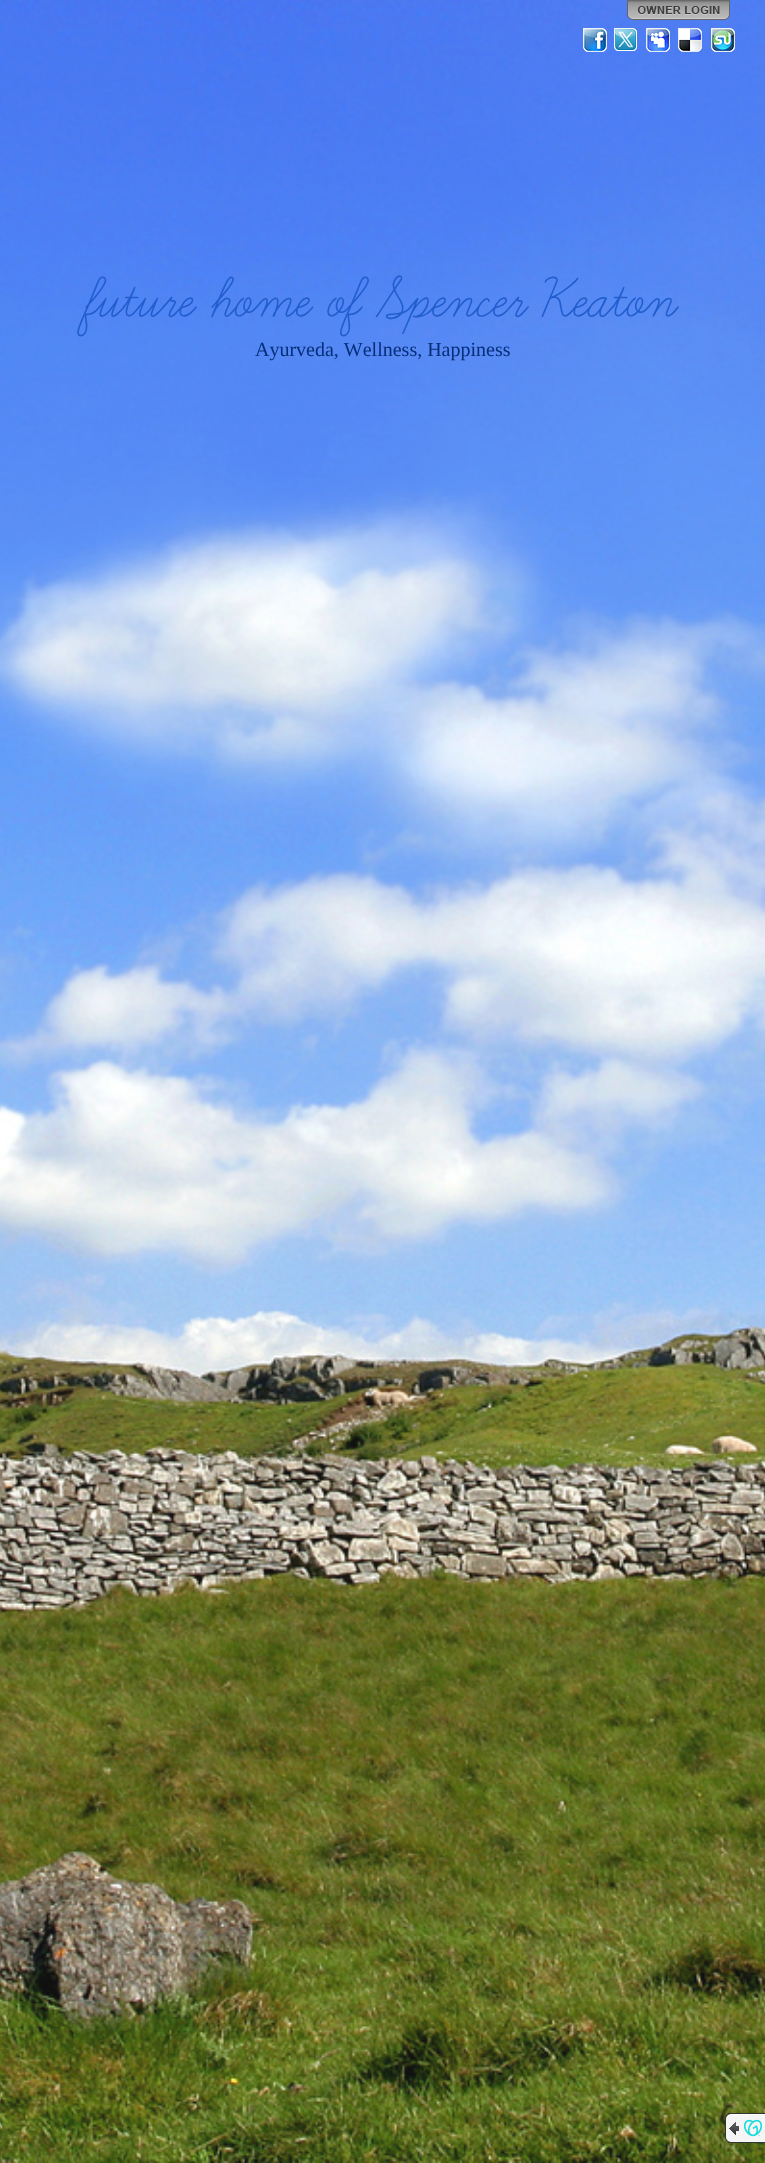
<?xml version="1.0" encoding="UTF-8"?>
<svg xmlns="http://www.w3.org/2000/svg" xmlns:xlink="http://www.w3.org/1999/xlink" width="765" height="2163">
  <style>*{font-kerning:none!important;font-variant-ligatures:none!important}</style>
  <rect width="100%" height="100%" fill="#ffffff" />
  <image x="0" y="0" width="765" height="2163" xlink:href="image1.png" />
  <image x="627" y="0" width="103" height="20" xlink:href="image2.png" />
  <image x="583" y="28" width="24" height="24" xlink:href="image3.png" />
  <image x="614" y="28" width="23" height="23" xlink:href="image4.png" />
  <image x="646" y="28" width="24" height="24" xlink:href="image5.png" />
  <image x="678" y="28" width="24" height="24" xlink:href="image6.png" />
  <image x="711" y="28" width="24" height="24" xlink:href="image7.png" />
  <image x="728" y="2113" width="37" height="30" xlink:href="image8.png" />
  <image x="725" y="2114" width="14" height="28" xlink:href="image9.png" />
  <image x="743" y="2119" width="20" height="18" xlink:href="image10.png" />
  <text x="82" y="319" word-spacing="-2.5" style="font-family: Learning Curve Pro; font-size: 70px; fill: #225dce">future home of Spencer Keaton</text>
  <text x="255" y="356" style="font-family: Liberation Serif; font-size: 20px; fill: #072e78">Ayurveda, Wellness, Happiness</text>
</svg>
